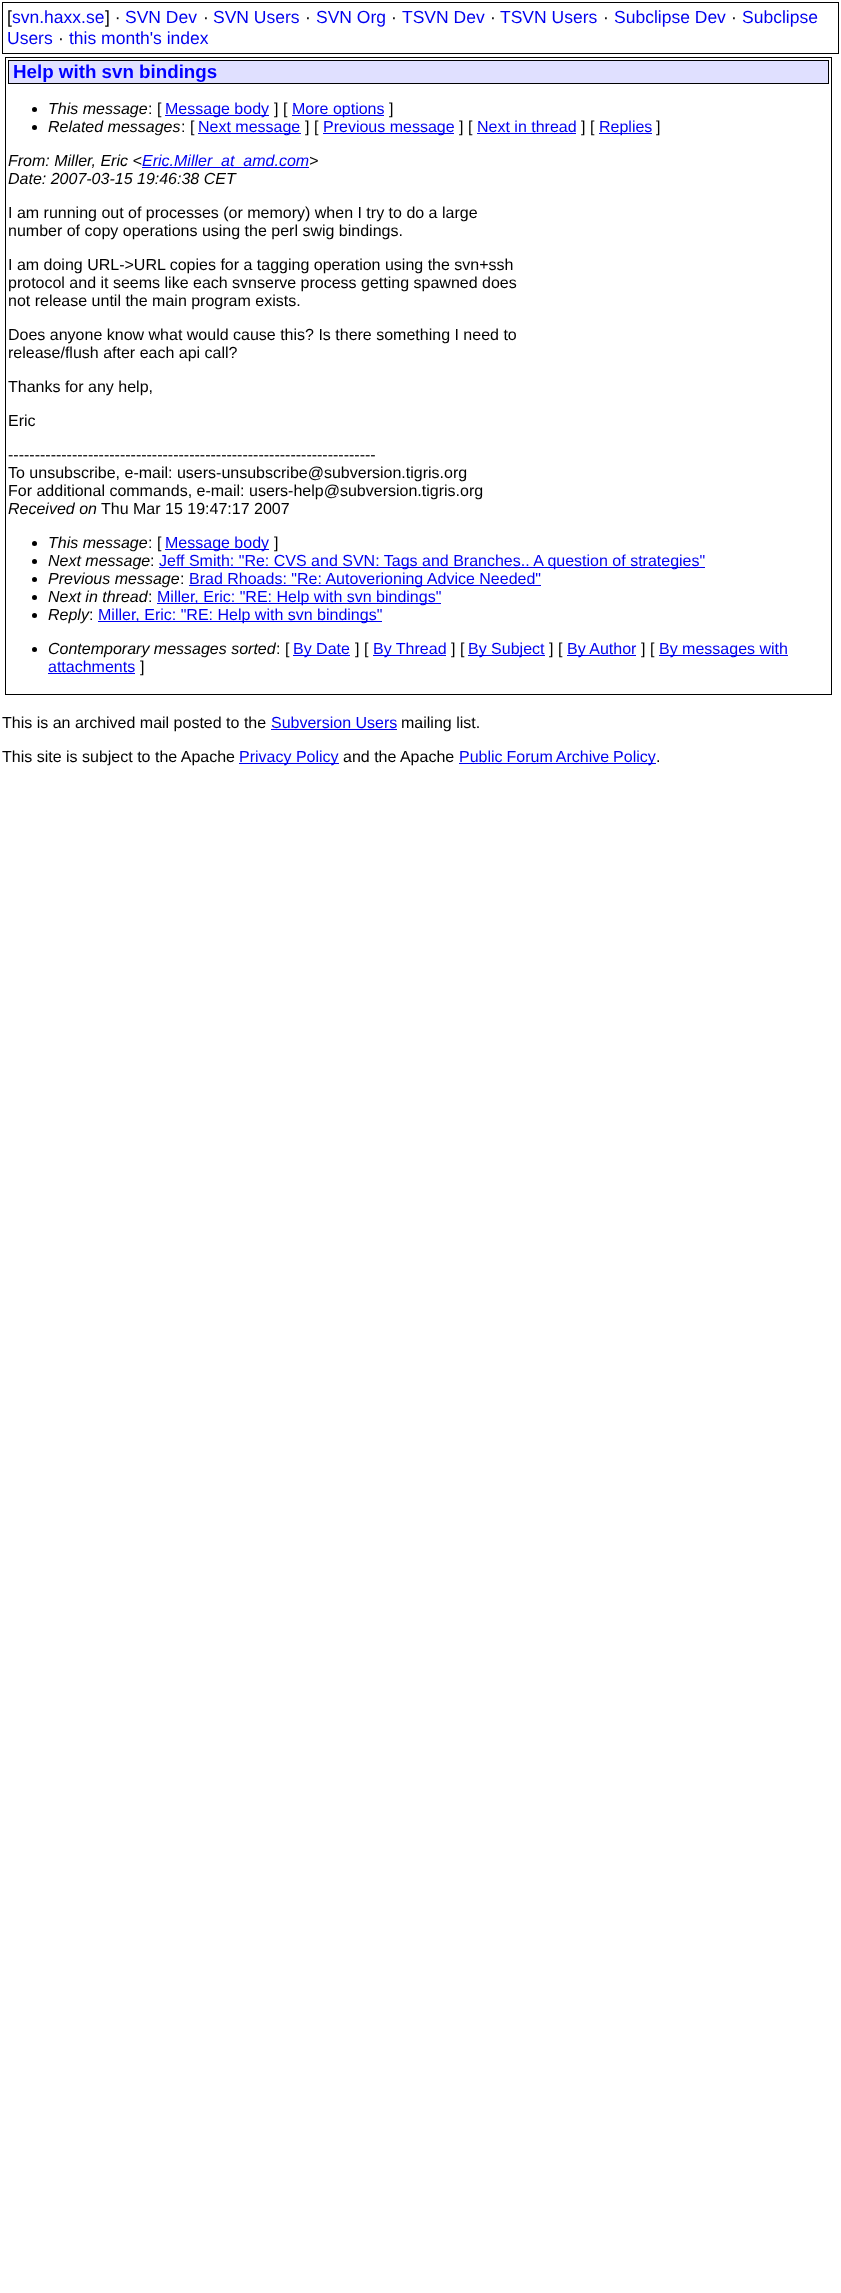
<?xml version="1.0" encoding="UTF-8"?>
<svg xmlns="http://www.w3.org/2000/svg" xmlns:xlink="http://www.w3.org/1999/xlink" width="841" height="2293">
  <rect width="100%" height="100%" fill="#ffffff" />
  <rect x="2.5" y="2.5" width="836" height="51" fill="none" stroke="#000000" />
  <rect x="5.5" y="57.5" width="826" height="637" fill="none" stroke="#000000" />
  <rect x="8.5" y="60.5" width="820" height="23" fill="#e0e0ff" stroke="#000000" />
  <circle cx="34.5" cy="109.5" r="2.5" fill="#000000" />
  <rect x="165" y="115" width="104" height="1" fill="#0000ee" />
  <rect x="292" y="115" width="92" height="1" fill="#0000ee" />
  <circle cx="34.5" cy="127.5" r="2.5" fill="#000000" />
  <rect x="198" y="133" width="103" height="1" fill="#0000ee" />
  <rect x="323" y="133" width="131" height="1" fill="#0000ee" />
  <rect x="477" y="133" width="99" height="1" fill="#0000ee" />
  <rect x="599" y="133" width="53" height="1" fill="#0000ee" />
  <rect x="142" y="167" width="167" height="1" fill="#0000ee" />
  <circle cx="34.5" cy="543.5" r="2.5" fill="#000000" />
  <rect x="165" y="549" width="104" height="1" fill="#0000ee" />
  <circle cx="34.5" cy="561.5" r="2.5" fill="#000000" />
  <rect x="159" y="567" width="546" height="1" fill="#0000ee" />
  <circle cx="34.5" cy="579.5" r="2.5" fill="#000000" />
  <rect x="189" y="585" width="352" height="1" fill="#0000ee" />
  <circle cx="34.5" cy="597.5" r="2.5" fill="#000000" />
  <rect x="157" y="603" width="284" height="1" fill="#0000ee" />
  <circle cx="34.5" cy="615.5" r="2.5" fill="#000000" />
  <rect x="98" y="621" width="284" height="1" fill="#0000ee" />
  <circle cx="34.5" cy="649.5" r="2.5" fill="#000000" />
  <rect x="293" y="655" width="57" height="1" fill="#0000ee" />
  <rect x="373" y="655" width="73" height="1" fill="#0000ee" />
  <rect x="468" y="655" width="77" height="1" fill="#0000ee" />
  <rect x="567" y="655" width="69" height="1" fill="#0000ee" />
  <rect x="659" y="655" width="129" height="1" fill="#0000ee" />
  <rect x="48" y="673" width="87" height="1" fill="#0000ee" />
  <rect x="271" y="729" width="126" height="1" fill="#0000ee" />
  <rect x="239" y="763" width="100" height="1" fill="#0000ee" />
  <rect x="459" y="763" width="197" height="1" fill="#0000ee" />
  <text x="7" y="23" style="font-family: Liberation Sans; font-size: 17.5px; fill: #000000">[</text>
  <text x="12" y="23" style="font-family: Liberation Sans; font-size: 17.5px; fill: #0000ee">svn.haxx.se</text>
  <text x="105" y="23" style="font-family: Liberation Sans; font-size: 17.5px; fill: #000000">] ·</text>
  <text x="125" y="23" style="font-family: Liberation Sans; font-size: 17.5px; fill: #0000ee">SVN Dev</text>
  <text x="203" y="23" style="font-family: Liberation Sans; font-size: 17.5px; fill: #000000">·</text>
  <text x="213" y="23" style="font-family: Liberation Sans; font-size: 17.5px; fill: #0000ee">SVN Users</text>
  <text x="305" y="23" style="font-family: Liberation Sans; font-size: 17.5px; fill: #000000">·</text>
  <text x="316" y="23" style="font-family: Liberation Sans; font-size: 17.5px; fill: #0000ee">SVN Org</text>
  <text x="391" y="23" style="font-family: Liberation Sans; font-size: 17.5px; fill: #000000">·</text>
  <text x="402" y="23" style="font-family: Liberation Sans; font-size: 17.5px; fill: #0000ee">TSVN Dev</text>
  <text x="490" y="23" style="font-family: Liberation Sans; font-size: 17.5px; fill: #000000">·</text>
  <text x="500" y="23" style="font-family: Liberation Sans; font-size: 17.5px; fill: #0000ee">TSVN Users</text>
  <text x="603" y="23" style="font-family: Liberation Sans; font-size: 17.5px; fill: #000000">·</text>
  <text x="614" y="23" style="font-family: Liberation Sans; font-size: 17.5px; fill: #0000ee">Subclipse Dev</text>
  <text x="731" y="23" style="font-family: Liberation Sans; font-size: 17.5px; fill: #000000">·</text>
  <text x="742" y="23" style="font-family: Liberation Sans; font-size: 17.5px; fill: #0000ee">Subclipse</text>
  <text x="7" y="44" style="font-family: Liberation Sans; font-size: 17.5px; fill: #0000ee">Users</text>
  <text x="58" y="44" style="font-family: Liberation Sans; font-size: 17.5px; fill: #000000">·</text>
  <text x="69" y="44" style="font-family: Liberation Sans; font-size: 17.5px; fill: #0000ee">this month's index</text>
  <text x="13" y="78" style="font-family: Liberation Sans; font-size: 18.75px; font-weight: bold; fill: #0000ff">Help with svn bindings</text>
  <text x="48" y="114" style="font-family: Liberation Sans; font-size: 16px; font-style: italic; fill: #000000">This message</text>
  <text x="148" y="114" style="font-family: Liberation Sans; font-size: 16px; fill: #000000">: [</text>
  <text x="165" y="114" style="font-family: Liberation Sans; font-size: 16px; fill: #0000ee">Message body</text>
  <text x="274" y="114" style="font-family: Liberation Sans; font-size: 16px; fill: #000000">] [</text>
  <text x="292" y="114" style="font-family: Liberation Sans; font-size: 16px; fill: #0000ee">More options</text>
  <text x="389" y="114" style="font-family: Liberation Sans; font-size: 16px; fill: #000000">]</text>
  <text x="48" y="132" style="font-family: Liberation Sans; font-size: 16px; font-style: italic; fill: #000000">Related messages</text>
  <text x="181" y="132" style="font-family: Liberation Sans; font-size: 16px; fill: #000000">: [</text>
  <text x="198" y="132" style="font-family: Liberation Sans; font-size: 16px; fill: #0000ee">Next message</text>
  <text x="305" y="132" style="font-family: Liberation Sans; font-size: 16px; fill: #000000">] [</text>
  <text x="323" y="132" style="font-family: Liberation Sans; font-size: 16px; fill: #0000ee">Previous message</text>
  <text x="459" y="132" style="font-family: Liberation Sans; font-size: 16px; fill: #000000">] [</text>
  <text x="477" y="132" style="font-family: Liberation Sans; font-size: 16px; fill: #0000ee">Next in thread</text>
  <text x="581" y="132" style="font-family: Liberation Sans; font-size: 16px; fill: #000000">] [</text>
  <text x="599" y="132" style="font-family: Liberation Sans; font-size: 16px; fill: #0000ee">Replies</text>
  <text x="656" y="132" style="font-family: Liberation Sans; font-size: 16px; fill: #000000">]</text>
  <text x="8" y="166" style="font-family: Liberation Sans; font-size: 16px; font-style: italic; fill: #000000">From: Miller, Eric &lt;</text>
  <text x="142" y="166" style="font-family: Liberation Sans; font-size: 16px; font-style: italic; fill: #0000ee">Eric.Miller_at_amd.com</text>
  <text x="309" y="166" style="font-family: Liberation Sans; font-size: 16px; font-style: italic; fill: #000000">&gt;</text>
  <text x="8" y="184" style="font-family: Liberation Sans; font-size: 16px; font-style: italic; fill: #000000">Date: 2007-03-15 19:46:38 CET</text>
  <text x="8" y="218" style="font-family: Liberation Sans; font-size: 16px; fill: #000000">I am running out of processes (or memory) when I try to do a large</text>
  <text x="8" y="236" style="font-family: Liberation Sans; font-size: 16px; fill: #000000">number of copy operations using the perl swig bindings.</text>
  <text x="8" y="270" style="font-family: Liberation Sans; font-size: 16px; fill: #000000">I am doing URL-&gt;URL copies for a tagging operation using the svn+ssh</text>
  <text x="8" y="288" style="font-family: Liberation Sans; font-size: 16px; fill: #000000">protocol and it seems like each svnserve process getting spawned does</text>
  <text x="8" y="306" style="font-family: Liberation Sans; font-size: 16px; fill: #000000">not release until the main program exists.</text>
  <text x="8" y="340" style="font-family: Liberation Sans; font-size: 16px; fill: #000000">Does anyone know what would cause this? Is there something I need to</text>
  <text x="8" y="358" style="font-family: Liberation Sans; font-size: 16px; fill: #000000">release/flush after each api call?</text>
  <text x="8" y="392" style="font-family: Liberation Sans; font-size: 16px; fill: #000000">Thanks for any help,</text>
  <text x="8" y="426" style="font-family: Liberation Sans; font-size: 16px; fill: #000000">Eric</text>
  <text x="8" y="460" style="font-family: Liberation Sans; font-size: 16px; fill: #000000">---------------------------------------------------------------------</text>
  <text x="8" y="478" style="font-family: Liberation Sans; font-size: 16px; fill: #000000">To unsubscribe, e-mail: users-unsubscribe@subversion.tigris.org</text>
  <text x="8" y="496" style="font-family: Liberation Sans; font-size: 16px; fill: #000000">For additional commands, e-mail: users-help@subversion.tigris.org</text>
  <text x="8" y="514" style="font-family: Liberation Sans; font-size: 16px; font-style: italic; fill: #000000">Received on</text>
  <text x="101" y="514" style="font-family: Liberation Sans; font-size: 16px; fill: #000000">Thu Mar 15 19:47:17 2007</text>
  <text x="48" y="548" style="font-family: Liberation Sans; font-size: 16px; font-style: italic; fill: #000000">This message</text>
  <text x="148" y="548" style="font-family: Liberation Sans; font-size: 16px; fill: #000000">: [</text>
  <text x="165" y="548" style="font-family: Liberation Sans; font-size: 16px; fill: #0000ee">Message body</text>
  <text x="274" y="548" style="font-family: Liberation Sans; font-size: 16px; fill: #000000">]</text>
  <text x="48" y="566" style="font-family: Liberation Sans; font-size: 16px; font-style: italic; fill: #000000">Next message</text>
  <text x="150" y="566" style="font-family: Liberation Sans; font-size: 16px; fill: #000000">:</text>
  <text x="159" y="566" style="font-family: Liberation Sans; font-size: 16px; fill: #0000ee">Jeff Smith: "Re: CVS and SVN: Tags and Branches.. A question of strategies"</text>
  <text x="48" y="584" style="font-family: Liberation Sans; font-size: 16px; font-style: italic; fill: #000000">Previous message</text>
  <text x="180" y="584" style="font-family: Liberation Sans; font-size: 16px; fill: #000000">:</text>
  <text x="189" y="584" style="font-family: Liberation Sans; font-size: 16px; fill: #0000ee">Brad Rhoads: "Re: Autoverioning Advice Needed"</text>
  <text x="48" y="602" style="font-family: Liberation Sans; font-size: 16px; font-style: italic; fill: #000000">Next in thread</text>
  <text x="148" y="602" style="font-family: Liberation Sans; font-size: 16px; fill: #000000">:</text>
  <text x="157" y="602" style="font-family: Liberation Sans; font-size: 16px; fill: #0000ee">Miller, Eric: "RE: Help with svn bindings"</text>
  <text x="48" y="620" style="font-family: Liberation Sans; font-size: 16px; font-style: italic; fill: #000000">Reply</text>
  <text x="89" y="620" style="font-family: Liberation Sans; font-size: 16px; fill: #000000">:</text>
  <text x="98" y="620" style="font-family: Liberation Sans; font-size: 16px; fill: #0000ee">Miller, Eric: "RE: Help with svn bindings"</text>
  <text x="48" y="654" style="font-family: Liberation Sans; font-size: 16px; font-style: italic; fill: #000000">Contemporary messages sorted</text>
  <text x="276" y="654" style="font-family: Liberation Sans; font-size: 16px; fill: #000000">: [</text>
  <text x="293" y="654" style="font-family: Liberation Sans; font-size: 16px; fill: #0000ee">By Date</text>
  <text x="355" y="654" style="font-family: Liberation Sans; font-size: 16px; fill: #000000">] [</text>
  <text x="373" y="654" style="font-family: Liberation Sans; font-size: 16px; fill: #0000ee">By Thread</text>
  <text x="451" y="654" style="font-family: Liberation Sans; font-size: 16px; fill: #000000">] [</text>
  <text x="468" y="654" style="font-family: Liberation Sans; font-size: 16px; fill: #0000ee">By Subject</text>
  <text x="549" y="654" style="font-family: Liberation Sans; font-size: 16px; fill: #000000">] [</text>
  <text x="567" y="654" style="font-family: Liberation Sans; font-size: 16px; fill: #0000ee">By Author</text>
  <text x="641" y="654" style="font-family: Liberation Sans; font-size: 16px; fill: #000000">] [</text>
  <text x="659" y="654" style="font-family: Liberation Sans; font-size: 16px; fill: #0000ee">By messages with</text>
  <text x="48" y="672" style="font-family: Liberation Sans; font-size: 16px; fill: #0000ee">attachments</text>
  <text x="140" y="672" style="font-family: Liberation Sans; font-size: 16px; fill: #000000">]</text>
  <text x="2" y="728" style="font-family: Liberation Sans; font-size: 16px; fill: #000000">This is an archived mail posted to the</text>
  <text x="271" y="728" style="font-family: Liberation Sans; font-size: 16px; fill: #0000ee">Subversion Users</text>
  <text x="401" y="728" style="font-family: Liberation Sans; font-size: 16px; fill: #000000">mailing list.</text>
  <text x="2" y="762" style="font-family: Liberation Sans; font-size: 16px; fill: #000000">This site is subject to the Apache</text>
  <text x="239" y="762" style="font-family: Liberation Sans; font-size: 16px; fill: #0000ee">Privacy Policy</text>
  <text x="343" y="762" style="font-family: Liberation Sans; font-size: 16px; fill: #000000">and the Apache</text>
  <text x="459" y="762" word-spacing="-0.5" style="font-family: Liberation Sans; font-size: 16px; fill: #0000ee">Public Forum Archive Policy</text>
  <text x="656" y="762" style="font-family: Liberation Sans; font-size: 16px; fill: #000000">.</text>
</svg>
